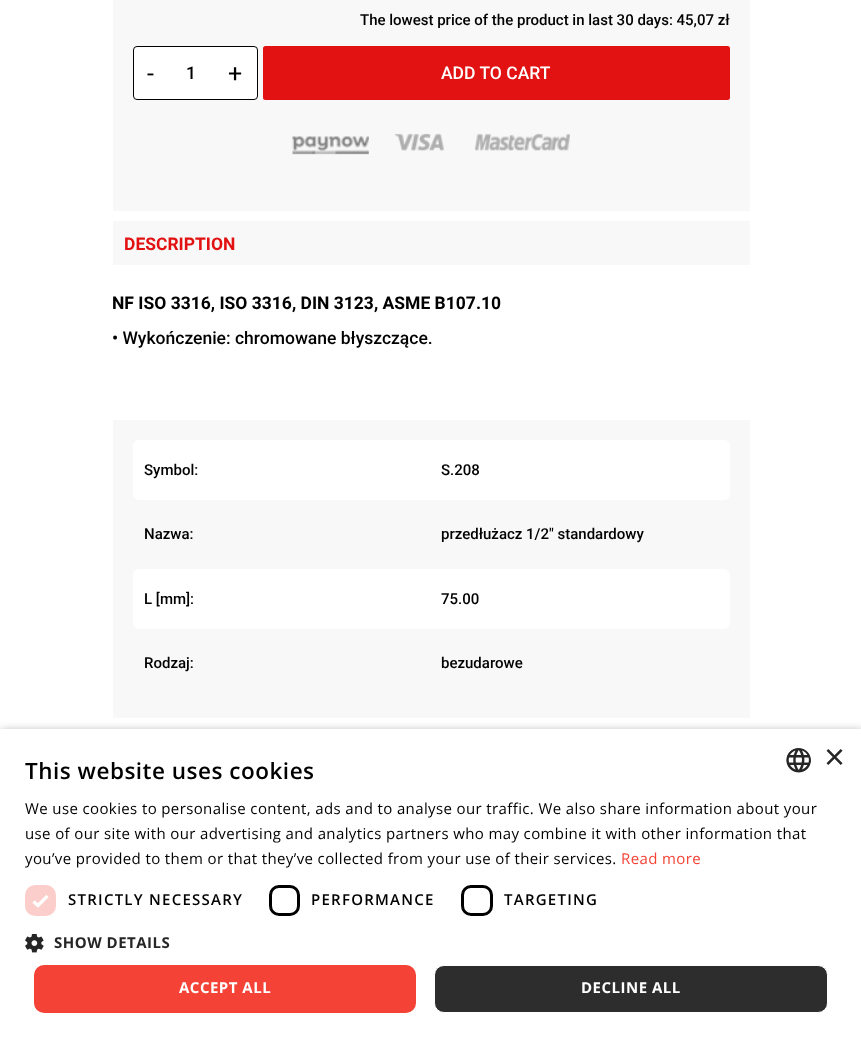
<?xml version="1.0" encoding="UTF-8"?>
<svg xmlns="http://www.w3.org/2000/svg" xmlns:xlink="http://www.w3.org/1999/xlink" width="861" height="1037">
  <rect width="100%" height="100%" fill="#ffffff" />
  <rect x="113" width="637" height="211" fill="#f8f8f8" />
  <rect x="133.5" y="46.5" width="124" height="53" rx="3.5" fill="#ffffff" stroke="#000000" />
  <rect x="264.5" y="47.5" width="464" height="51" rx="1" fill="#e21212" stroke="#e21212" stroke-width="3" />
  <image x="292" y="133" width="278" height="22" xlink:href="image1.png" />
  <rect x="113" y="221" width="637" height="44" fill="#f8f8f8" />
  <rect x="113" y="420" width="637" height="298" fill="#f8f8f8" />
  <rect x="133" y="440" width="597" height="60" rx="6" fill="#ffffff" />
  <rect x="133" y="569" width="597" height="60" rx="6" fill="#ffffff" />
  <rect x="1" y="731" width="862" height="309" fill="#000000" fill-opacity="0.35" filter="blur(5px)" />
  <rect y="729" width="861" height="308" fill="#ffffff" />
  <image x="786" y="748" width="25" height="25" xlink:href="image2.png" />
  <rect x="25" y="885" width="31" height="31" rx="10" fill="#fccecb" />
  <path d="M 33.5 901.5 l 4.5 4 l 9.5 -9.5" fill="none" stroke="#ffffff" stroke-width="3.3" />
  <rect x="270.5" y="886.5" width="28" height="28" rx="8.5" fill="none" stroke="#000000" stroke-width="3" />
  <rect x="462.5" y="886.5" width="29" height="28" rx="8.5" fill="none" stroke="#000000" stroke-width="3" />
  <image x="25" y="934" width="19" height="19" xlink:href="image3.png" />
  <rect x="34" y="965" width="382" height="48" rx="10" fill="#f44336" />
  <rect x="434.5" y="965.5" width="393" height="47" rx="9.5" fill="#2d2d2d" stroke="#ffffff" />
  <text x="360" y="25" style="font-family: Roboto; font-size: 15px; font-weight: 500; fill: #000000">The lowest price of the product in last 30 days: 45,07 zł</text>
  <text x="147" y="82" style="font-family: Roboto; font-size: 25px; fill: #000000">-</text>
  <text x="186" y="79" style="font-family: Roboto; font-size: 17.5px; font-weight: 500; fill: #000000">1</text>
  <text x="228" y="82" style="font-family: Roboto; font-size: 25px; fill: #000000">+</text>
  <text x="441" y="79" style="font-family: Roboto; font-size: 17.5px; font-weight: 500; fill: #ffffff">ADD TO CART</text>
  <text x="124" y="250" style="font-family: Roboto; font-size: 17.5px; font-weight: bold; fill: #e21212">DESCRIPTION</text>
  <text x="112" y="309" style="font-family: Roboto; font-size: 17.5px; font-weight: bold; fill: #000000">NF ISO 3316, ISO 3316, DIN 3123, ASME B107.10</text>
  <text x="112" y="344" style="font-family: Roboto; font-size: 17.5px; font-weight: 500; fill: #000000">• Wykończenie: chromowane błyszczące.</text>
  <text x="144" y="475" style="font-family: Roboto; font-size: 15px; font-weight: 500; fill: #000000">Symbol:</text>
  <text x="441" y="475" style="font-family: Roboto; font-size: 15px; font-weight: 500; fill: #000000">S.208</text>
  <text x="144" y="539" style="font-family: Roboto; font-size: 15px; font-weight: 500; fill: #000000">Nazwa:</text>
  <text x="441" y="539" style="font-family: Roboto; font-size: 15px; font-weight: 500; fill: #000000">przedłużacz 1/2" standardowy</text>
  <text x="144" y="604" style="font-family: Roboto; font-size: 15px; font-weight: 500; fill: #000000">L [mm]:</text>
  <text x="441" y="604" style="font-family: Roboto; font-size: 15px; font-weight: 500; fill: #000000">75.00</text>
  <text x="144" y="668" style="font-family: Roboto; font-size: 15px; font-weight: 500; fill: #000000">Rodzaj:</text>
  <text x="441" y="668" style="font-family: Roboto; font-size: 15px; font-weight: 500; fill: #000000">bezudarowe</text>
  <text x="824" y="769" style="font-family: Liberation Sans; font-size: 36px; fill: #262626">×</text>
  <text x="25" y="779" style="font-family: Open Sans; font-size: 22.5px; font-weight: 600; letter-spacing: 0.5px; fill: #000000">This website uses cookies</text>
  <text x="25" y="814" style="font-family: Open Sans; font-size: 15px; letter-spacing: 0.38px; fill: #000000">We use cookies to personalise content, ads and to analyse our traffic. We also share information about your</text>
  <text x="25" y="839" style="font-family: Open Sans; font-size: 15px; letter-spacing: 0.38px; fill: #000000">use of our site with our advertising and analytics partners who may combine it with other information that</text>
  <text x="25" y="864" style="font-family: Open Sans; font-size: 15px; letter-spacing: 0.38px; fill: #000000">you’ve provided to them or that they’ve collected from your use of their services.</text>
  <text x="621" y="864" style="font-family: Open Sans; font-size: 15px; letter-spacing: 0.38px; fill: #f44336">Read more</text>
  <text x="68" y="905" style="font-family: Open Sans; font-size: 15px; font-weight: 600; letter-spacing: 1.25px; fill: #000000">STRICTLY NECESSARY</text>
  <text x="311" y="905" style="font-family: Open Sans; font-size: 15px; font-weight: 600; letter-spacing: 1.25px; fill: #000000">PERFORMANCE</text>
  <text x="504" y="905" style="font-family: Open Sans; font-size: 15px; font-weight: 600; letter-spacing: 1.25px; fill: #000000">TARGETING</text>
  <text x="54" y="948" style="font-family: Open Sans; font-size: 15px; font-weight: bold; letter-spacing: 0.5px; fill: #262626">SHOW DETAILS</text>
  <text x="179" y="993" style="font-family: Open Sans; font-size: 15px; font-weight: bold; letter-spacing: 0.5px; fill: #ffffff">ACCEPT ALL</text>
  <text x="581" y="993" style="font-family: Open Sans; font-size: 15px; font-weight: bold; letter-spacing: 0.5px; fill: #ffffff">DECLINE ALL</text>
</svg>
